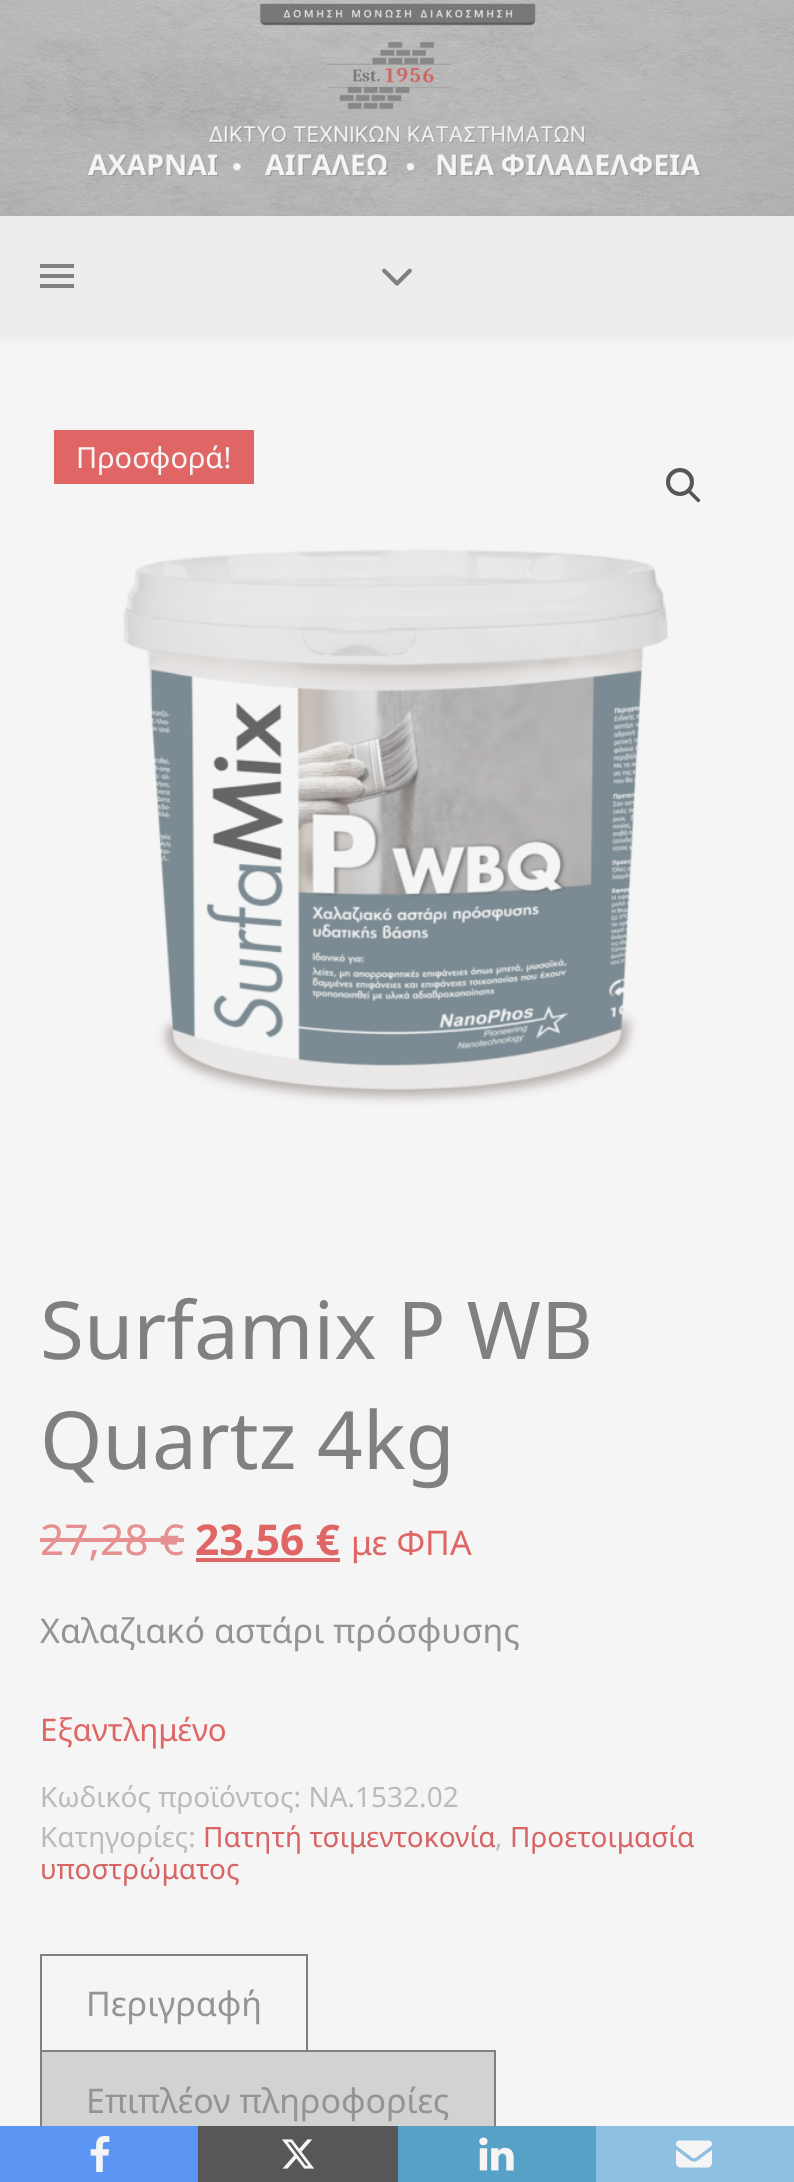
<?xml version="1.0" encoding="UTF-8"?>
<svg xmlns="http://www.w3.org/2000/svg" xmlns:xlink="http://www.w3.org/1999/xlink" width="794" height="2182">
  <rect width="100%" height="100%" fill="#f5f5f5" />
  <image x="0" y="0" width="794" height="216" xlink:href="image1.png" />
  <rect y="218" width="794" height="120" fill="#808080" fill-opacity="0.1" filter="blur(5px)" />
  <rect y="216" width="794" height="120" fill="#ededed" />
  <rect x="40" y="264" width="34" height="4" fill="#808080" />
  <rect x="40" y="274" width="34" height="4" fill="#808080" />
  <rect x="40" y="284" width="34" height="4" fill="#808080" />
  <image x="382" y="268" width="30" height="18" xlink:href="image2.png" />
  <rect x="54" y="430" width="200" height="54" fill="#e06666" />
  <circle cx="680" cy="482" r="12" fill="none" stroke="#575757" stroke-width="4" />
  <path d="M 688.5 490.5 c 0.5 -1 2 -1 2.5 0 l 8.5 8.5 c 1 0.5 1 2 0 2.5 c -0.5 1 -2 1 -2.5 0 l -8.5 -8.5 c -1 -0.5 -1 -2 0 -2.5 z" fill="#575757" />
  <image x="123" y="549" width="545" height="557" xlink:href="image3.png" />
  <rect x="40" y="1538" width="144" height="4" fill="#e69191" />
  <rect x="196" y="1558" width="144" height="4" fill="#e06666" />
  <rect x="40" y="1954" width="268" height="2" fill="#808080" />
  <rect x="306" y="1954" width="2" height="96" fill="#808080" />
  <rect x="40" y="1954" width="2" height="96" fill="#808080" />
  <rect x="42" y="2052" width="452" height="74" fill="#d2d2d2" />
  <rect x="40" y="2050" width="456" height="2" fill="#808080" />
  <rect x="494" y="2050" width="2" height="76" fill="#808080" />
  <rect x="40" y="2050" width="2" height="76" fill="#808080" />
  <rect y="2126" width="198" height="56" fill="#5c96f5" />
  <image x="90" y="2136" width="20" height="36" xlink:href="image4.png" />
  <rect x="198" y="2126" width="200" height="56" fill="#575757" />
  <image x="282" y="2139" width="33" height="30" xlink:href="image5.png" />
  <rect x="398" y="2126" width="198" height="56" fill="#57a1c7" />
  <image x="479" y="2137" width="35" height="34" xlink:href="image6.png" />
  <rect x="596" y="2126" width="198" height="56" fill="#8ec0e1" />
  <image x="676" y="2140" width="36" height="28" xlink:href="image7.png" />
  <text x="76" y="468" style="font-family: Noto Sans; font-size: 29px; fill: #f5f5f5">Προσφορά!</text>
  <text x="40" y="1359" style="font-family: Noto Sans; font-size: 80px; fill: #808080">Surfamix P WB</text>
  <text x="40" y="1469" style="font-family: Noto Sans; font-size: 80px; fill: #808080">Quartz 4kg</text>
  <text x="40" y="1555" style="font-family: Noto Sans; font-size: 42.5px; fill: #e69191">27,28 €</text>
  <text x="195" y="1555" style="font-family: Noto Sans; font-size: 42.5px; font-weight: bold; fill: #e06666">23,56 €</text>
  <text x="351" y="1555" style="font-family: Noto Sans; font-size: 34px; fill: #e06666">με ΦΠΑ</text>
  <text x="40" y="1643" style="font-family: Noto Sans; font-size: 34px; fill: #949494">Χαλαζιακό αστάρι πρόσφυσης</text>
  <text x="40" y="1741" style="font-family: Noto Sans; font-size: 31.25px; fill: #e06666">Εξαντλημένο</text>
  <text x="40" y="1807" style="font-family: Noto Sans; font-size: 28px; fill: #bbbbbb">Κωδικός προϊόντος: NA.1532.02</text>
  <text x="40" y="1847" style="font-family: Noto Sans; font-size: 28px; fill: #bbbbbb">Κατηγορίες:</text>
  <text x="203" y="1847" style="font-family: Noto Sans; font-size: 28px; fill: #d76565">Πατητή τσιμεντοκονία</text>
  <text x="495" y="1847" style="font-family: Noto Sans; font-size: 28px; fill: #bbbbbb">,</text>
  <text x="510" y="1847" style="font-family: Noto Sans; font-size: 28px; fill: #d76565">Προετοιμασία</text>
  <text x="40" y="1879" style="font-family: Noto Sans; font-size: 28px; fill: #d76565">υποστρώματος</text>
  <text x="86" y="2016" style="font-family: Noto Sans; font-size: 34px; fill: #949494">Περιγραφή</text>
  <text x="86" y="2113" style="font-family: Noto Sans; font-size: 34px; fill: #949494">Επιπλέον πληροφορίες</text>
</svg>
